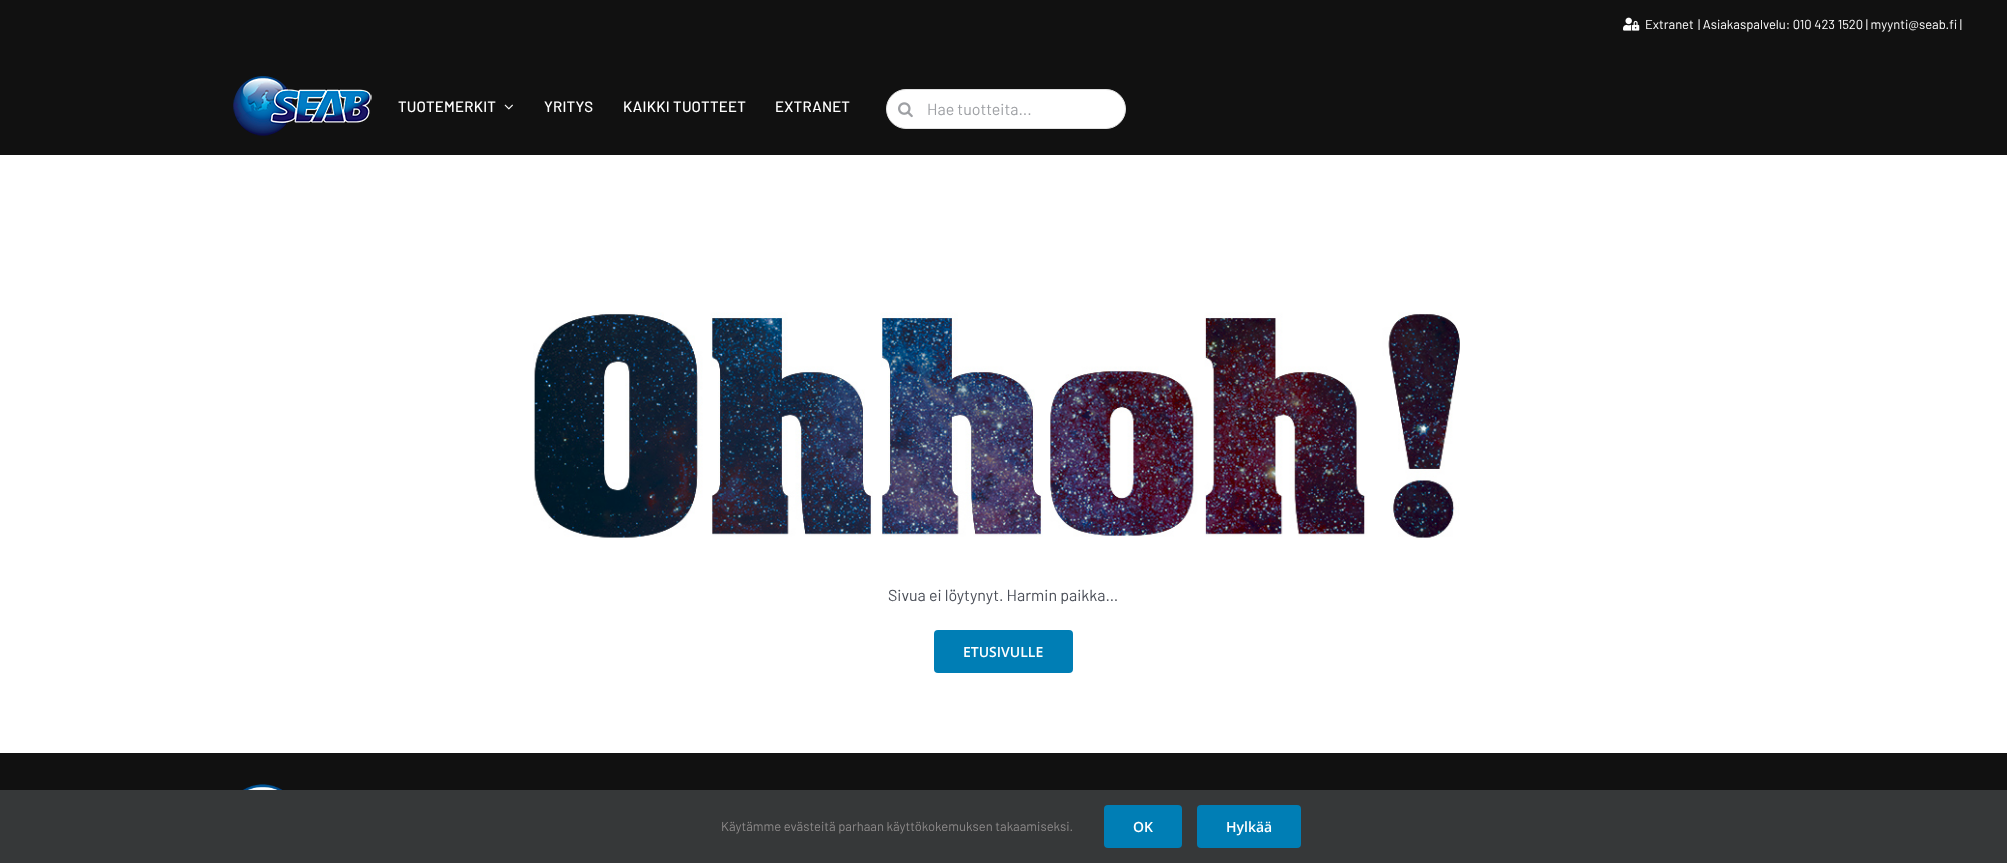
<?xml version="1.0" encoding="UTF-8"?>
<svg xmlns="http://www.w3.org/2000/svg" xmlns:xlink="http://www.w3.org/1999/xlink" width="2007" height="863">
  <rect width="100%" height="100%" fill="#ffffff" />
  <rect width="2007" height="155" fill="#111111" />
  <image x="1623" y="17" width="17" height="14" xlink:href="image1.png" />
  <image x="233" y="76" width="139" height="60" xlink:href="image2.png" />
  <image x="504" y="104" width="9" height="6" xlink:href="image3.png" />
  <rect x="886.5" y="89.5" width="239" height="39" rx="19.5" fill="#ffffff" stroke="#e2e2e2" />
  <image x="898" y="102" width="15" height="16" xlink:href="image4.png" />
  <image x="533" y="312" width="927" height="228" xlink:href="image5.png" />
  <rect x="934" y="630" width="139" height="43" rx="4" fill="#007eb5" />
  <rect y="753" width="2007" height="37" fill="#111111" />
  <image x="243" y="784" width="40" height="6" xlink:href="image6.png" />
  <rect y="790" width="2007" height="73" fill="#363839" />
  <rect x="1104" y="805" width="78" height="43" rx="4" fill="#007eb5" />
  <rect x="1197" y="805" width="104" height="43" rx="4" fill="#007eb5" />
  <text x="1645" y="29" style="font-family: Barlow; font-size: 13px; fill: #ffffff">Extranet</text>
  <text x="1698" y="29" style="font-family: Barlow; font-size: 13px; fill: #ffffff">| Asiakaspalvelu: 010 423 1520 | myynti@seab.fi |</text>
  <text x="398" y="112" style="font-family: Barlow; font-size: 15px; font-weight: 500; letter-spacing: 0.25px; fill: #ffffff">TUOTEMERKIT</text>
  <text x="544" y="112" style="font-family: Barlow; font-size: 15px; font-weight: 500; letter-spacing: 0.25px; fill: #ffffff">YRITYS</text>
  <text x="623" y="112" style="font-family: Barlow; font-size: 15px; font-weight: 500; letter-spacing: 0.25px; fill: #ffffff">KAIKKI TUOTTEET</text>
  <text x="775" y="112" style="font-family: Barlow; font-size: 15px; font-weight: 500; letter-spacing: 0.25px; fill: #ffffff">EXTRANET</text>
  <text x="927" y="115" style="font-family: Barlow; font-size: 16px; fill: #9ea0a4">Hae tuotteita...</text>
  <text x="888" y="601" style="font-family: Barlow; font-size: 16px; fill: #4a4e57">Sivua ei löytynyt. Harmin paikka…</text>
  <text x="963" y="657" style="font-family: Open Sans; font-size: 14px; font-weight: 600; fill: #ffffff">ETUSIVULLE</text>
  <text x="721" y="831" style="font-family: Barlow; font-size: 13px; fill: #8c8989">Käytämme evästeitä parhaan käyttökokemuksen takaamiseksi.</text>
  <text x="1133" y="832" style="font-family: Open Sans; font-size: 14px; font-weight: 600; fill: #ffffff">OK</text>
  <text x="1226" y="832" style="font-family: Open Sans; font-size: 14px; font-weight: 600; fill: #ffffff">Hylkää</text>
</svg>
